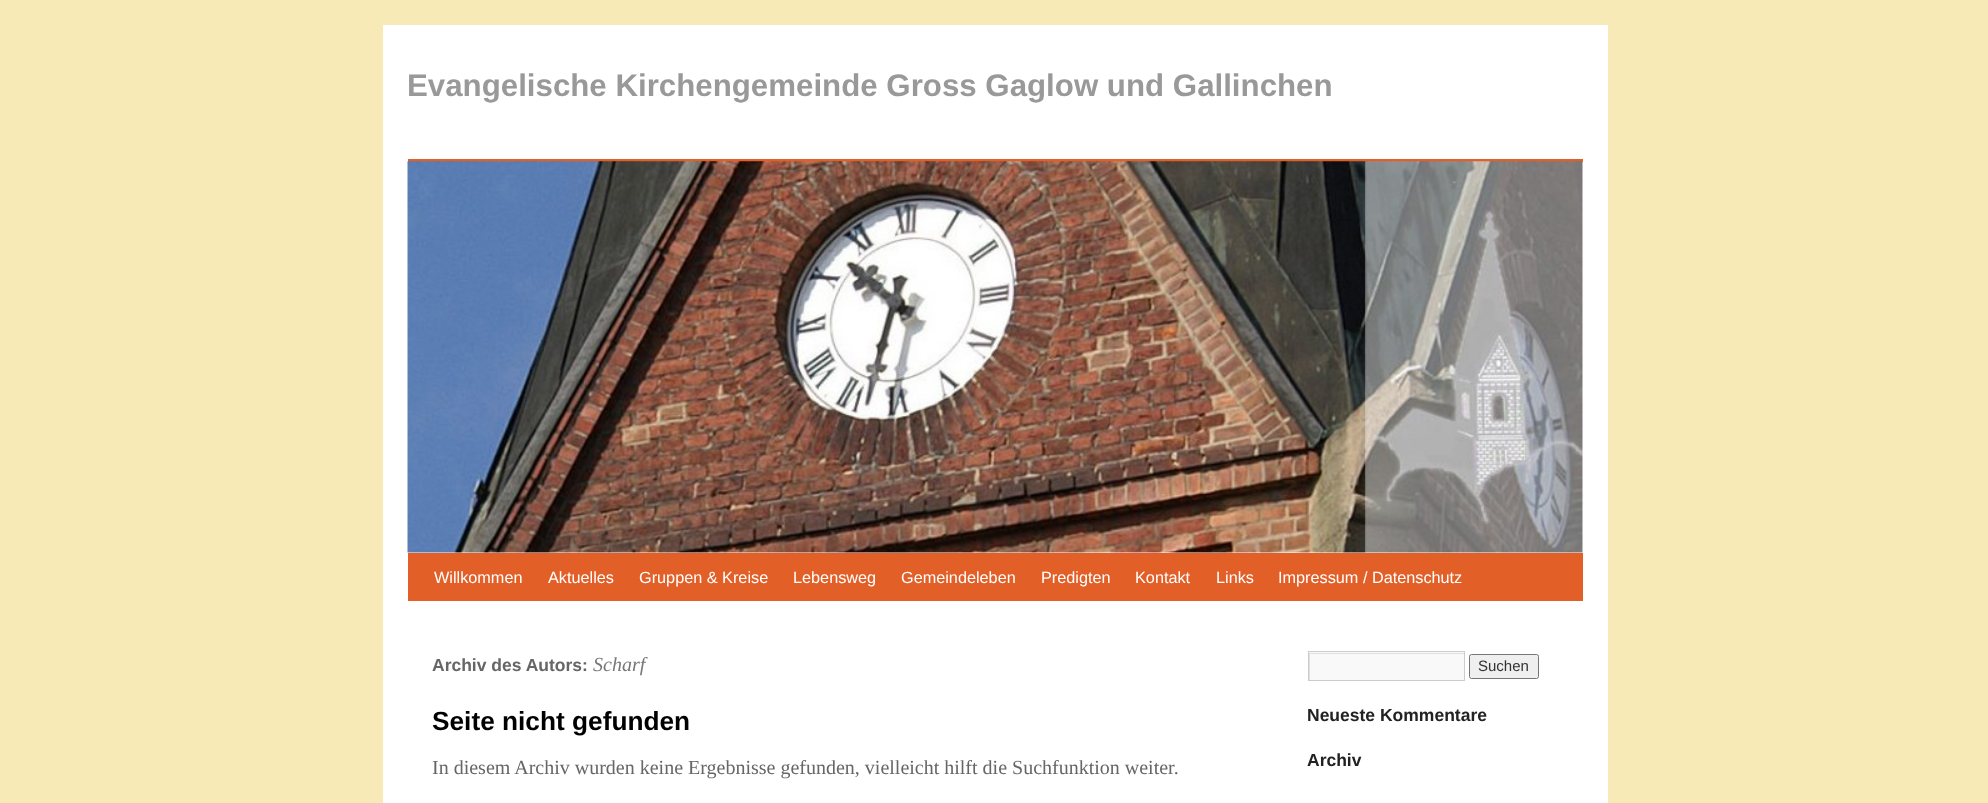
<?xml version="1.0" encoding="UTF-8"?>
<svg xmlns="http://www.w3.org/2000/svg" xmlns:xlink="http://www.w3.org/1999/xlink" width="1988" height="803">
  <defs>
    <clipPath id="clip1"><rect x="1309" y="653" width="155" height="27" /></clipPath>
  </defs>
  <rect width="100%" height="100%" fill="#f7eab6" />
  <rect x="383" y="25" width="1225" height="778" fill="#ffffff" />
  <rect x="408" y="159" width="1175" height="3" fill="#e26028" />
  <rect x="408" y="553" width="1175" height="48" fill="#e26028" />
  <image x="407" y="161" width="1176" height="392" xlink:href="image1.png" />
  <rect x="1309" y="652" width="155" height="28" fill="#f9f9f9" />
  <g clip-path="url(#clip1)">
    <path d="M 1185 529 h 403 v 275 h -403 z m 125 125 h 155 v 27 h -155 z" fill="#e0e0e0" fill-rule="evenodd" />
  </g>
  <rect x="1308.5" y="651.5" width="156" height="29" fill="none" stroke="#cccccc" />
  <rect x="1469.5" y="654.5" width="69" height="24" rx="2" fill="#efefef" stroke="#767676" />
  <text x="407" y="96" style="font-family: Liberation Sans; font-size: 31.25px; font-weight: bold; fill: #999999">Evangelische Kirchengemeinde Gross Gaglow und Gallinchen</text>
  <text x="434" y="583" style="font-family: Liberation Sans; font-size: 16.25px; fill: #ffffff">Willkommen</text>
  <text x="548" y="583" style="font-family: Liberation Sans; font-size: 16.25px; fill: #ffffff">Aktuelles</text>
  <text x="639" y="583" style="font-family: Liberation Sans; font-size: 16.25px; fill: #ffffff">Gruppen &amp; Kreise</text>
  <text x="793" y="583" style="font-family: Liberation Sans; font-size: 16.25px; fill: #ffffff">Lebensweg</text>
  <text x="901" y="583" style="font-family: Liberation Sans; font-size: 16.25px; fill: #ffffff">Gemeindeleben</text>
  <text x="1041" y="583" style="font-family: Liberation Sans; font-size: 16.25px; fill: #ffffff">Predigten</text>
  <text x="1135" y="583" style="font-family: Liberation Sans; font-size: 16.25px; fill: #ffffff">Kontakt</text>
  <text x="1216" y="583" style="font-family: Liberation Sans; font-size: 16.25px; fill: #ffffff">Links</text>
  <text x="1278" y="583" style="font-family: Liberation Sans; font-size: 16.25px; fill: #ffffff">Impressum / Datenschutz</text>
  <text x="432" y="671" style="font-family: Liberation Sans; font-size: 17.5px; font-weight: bold; fill: #666666">Archiv des Autors:</text>
  <text x="593" y="671" style="font-family: Liberation Serif; font-size: 20px; font-style: italic; fill: #777777">Scharf</text>
  <text x="432" y="730" style="font-family: Liberation Sans; font-size: 26.25px; font-weight: bold; fill: #000000">Seite nicht gefunden</text>
  <text x="432" y="774" style="font-family: Liberation Serif; font-size: 20px; fill: #666666">In diesem Archiv wurden keine Ergebnisse gefunden, vielleicht hilft die Suchfunktion weiter.</text>
  <text x="1478" y="671" style="font-family: Liberation Sans; font-size: 15px; fill: #333333">Suchen</text>
  <text x="1307" y="721" style="font-family: Liberation Sans; font-size: 17.5px; font-weight: bold; fill: #222222">Neueste Kommentare</text>
  <text x="1307" y="766" style="font-family: Liberation Sans; font-size: 17.5px; font-weight: bold; fill: #222222">Archiv</text>
</svg>
